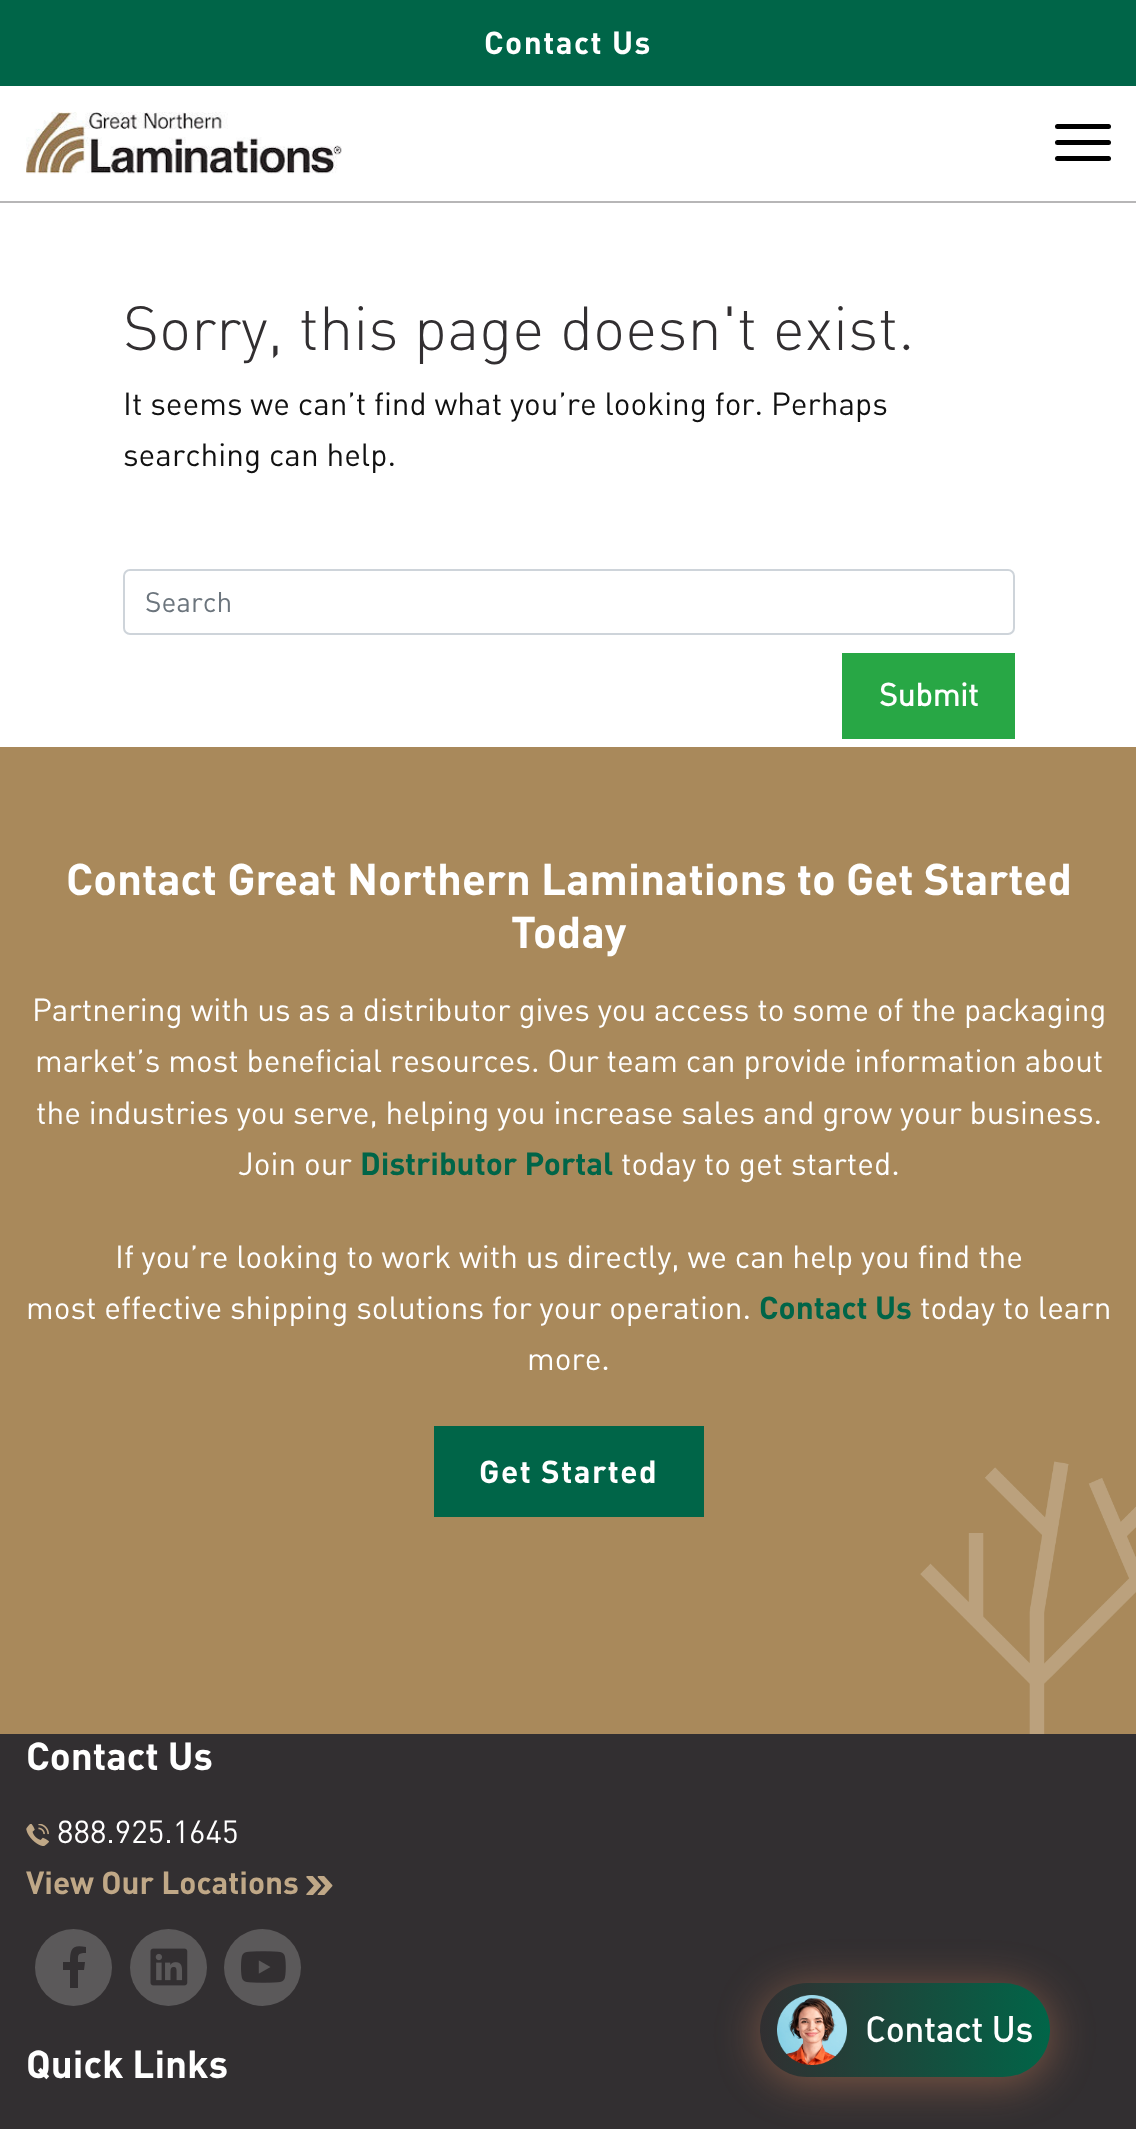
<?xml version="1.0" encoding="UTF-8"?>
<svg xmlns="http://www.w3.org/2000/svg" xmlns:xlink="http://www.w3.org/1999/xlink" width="1136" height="2129">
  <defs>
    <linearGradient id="g1" gradientUnits="userSpaceOnUse" x1="760" y1="2030" x2="1050" y2="2030"><stop offset="0" stop-color="#312f31" /><stop offset="1" stop-color="#016548" /></linearGradient>
  </defs>
  <rect width="100%" height="100%" fill="#ffffff" />
  <rect width="1136" height="86" fill="#006548" />
  <rect y="201" width="1136" height="2" fill="#b7b6b7" />
  <image x="26" y="112" width="316" height="62" xlink:href="image1.png" />
  <rect x="1055" y="140" width="56" height="5" rx="2.5" fill="#000000" />
  <rect x="1055" y="124" width="56" height="5" rx="2.5" fill="#000000" />
  <rect x="1055" y="156" width="56" height="5" rx="2.5" fill="#000000" />
  <rect x="124" y="570" width="890" height="64" rx="6" fill="none" stroke="#ced4da" stroke-width="2" />
  <rect x="842" y="653" width="173" height="86" fill="#28a745" />
  <rect y="747" width="1136" height="987" fill="#a9895b" />
  <rect x="434" y="1426" width="270" height="91" fill="#006548" />
  <image x="920" y="1461" width="216" height="273" xlink:href="image2.png" />
  <rect y="1734" width="1136" height="395" fill="#322f31" />
  <image x="26" y="1824" width="23" height="22" xlink:href="image3.png" />
  <image x="306" y="1876" width="27" height="19" xlink:href="image4.png" />
  <circle cx="73.5" cy="1967.5" r="38.5" fill="#5b595a" />
  <path d="M 84 1970 l 1 -8 h -7 c 0 -7 -1 -9 8 -9 v -6 c -14 -3 -16 2 -16 15 h -7 v 8 h 7 v 18 h 8 v -18 z" fill="#322f31" />
  <circle cx="168.5" cy="1967.5" r="38.5" fill="#5b595a" />
  <image x="150" y="1948" width="38" height="38" xlink:href="image5.png" />
  <circle cx="262.5" cy="1967.5" r="38.5" fill="#5b595a" />
  <image x="241" y="1951" width="45" height="32" xlink:href="image6.png" />
  <rect x="760" y="1988" width="290" height="95" rx="47.5" fill="#f69564" fill-opacity="0.39" filter="blur(22px)" />
  <rect x="760" y="1983" width="290" height="94" rx="47" fill="url(#g1)" />
  <image x="777" y="1995" width="70" height="70" xlink:href="image7.png" />
  <text x="484" y="54" style="font-family: DIN; font-size: 31.5px; font-weight: bold; letter-spacing: 1.5px; fill: #ffffff">Contact Us</text>
  <text x="123" y="350" style="font-family: DIN; font-size: 61.25px; font-weight: 300; fill: #322f31">Sorry, this page doesn't exist.</text>
  <text x="123" y="415" style="font-family: DIN; font-size: 31.5px; fill: #111111">It seems we can’t find what you’re looking for. Perhaps</text>
  <text x="123" y="466" style="font-family: DIN; font-size: 31.5px; fill: #111111">searching can help.</text>
  <text x="145" y="612" style="font-family: DIN; font-size: 28px; fill: #6c757d">Search</text>
  <text x="879" y="706" style="font-family: 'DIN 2'; font-size: 31.5px; font-weight: bold; fill: #ffffff">Submit</text>
  <text x="66" y="895" style="font-family: DIN; font-size: 43.75px; font-weight: bold; fill: #ffffff">Contact Great Northern Laminations to Get Started</text>
  <text x="511" y="948" style="font-family: DIN; font-size: 43.75px; font-weight: bold; fill: #ffffff">Today</text>
  <text x="32" y="1021" style="font-family: DIN; font-size: 31.5px; fill: #ffffff">Partnering with us as a distributor gives you access to some of the packaging</text>
  <text x="35" y="1072" style="font-family: DIN; font-size: 31.5px; fill: #ffffff">market’s most beneficial resources. Our team can provide information about</text>
  <text x="36" y="1124" style="font-family: DIN; font-size: 31.5px; fill: #ffffff">the industries you serve, helping you increase sales and grow your business.</text>
  <text x="238" y="1175" style="font-family: DIN; font-size: 31.5px; fill: #ffffff">Join our</text>
  <text x="360" y="1175" style="font-family: DIN; font-size: 31.5px; font-weight: bold; fill: #006548">Distributor Portal</text>
  <text x="621" y="1175" style="font-family: DIN; font-size: 31.5px; fill: #ffffff">today to get started.</text>
  <text x="115" y="1268" style="font-family: DIN; font-size: 31.5px; fill: #ffffff">If you’re looking to work with us directly, we can help you find the</text>
  <text x="26" y="1319" style="font-family: DIN; font-size: 31.5px; fill: #ffffff">most effective shipping solutions for your operation.</text>
  <text x="759" y="1319" style="font-family: DIN; font-size: 31.5px; font-weight: bold; fill: #006548">Contact Us</text>
  <text x="920" y="1319" style="font-family: DIN; font-size: 31.5px; fill: #ffffff">today to learn</text>
  <text x="527" y="1370" style="font-family: DIN; font-size: 31.5px; fill: #ffffff">more.</text>
  <text x="479" y="1483" style="font-family: DIN; font-size: 31.5px; font-weight: bold; letter-spacing: 1.5px; fill: #ffffff">Get Started</text>
  <text x="26" y="1770" style="font-family: DIN; font-size: 38.5px; font-weight: bold; fill: #ffffff">Contact Us</text>
  <text x="57" y="1843" style="font-family: 'DIN 2'; font-size: 31.5px; fill: #ffffff">888.925.1645</text>
  <text x="26" y="1894" style="font-family: DIN; font-size: 31.5px; font-weight: bold; fill: #c0a887">View Our Locations</text>
  <text x="26" y="2078" style="font-family: DIN; font-size: 38.5px; font-weight: bold; fill: #ffffff">Quick Links</text>
  <text x="865" y="2042" style="font-family: 'DIN 2'; font-size: 35px; font-weight: bold; fill: #ffffff">Contact Us</text>
</svg>
